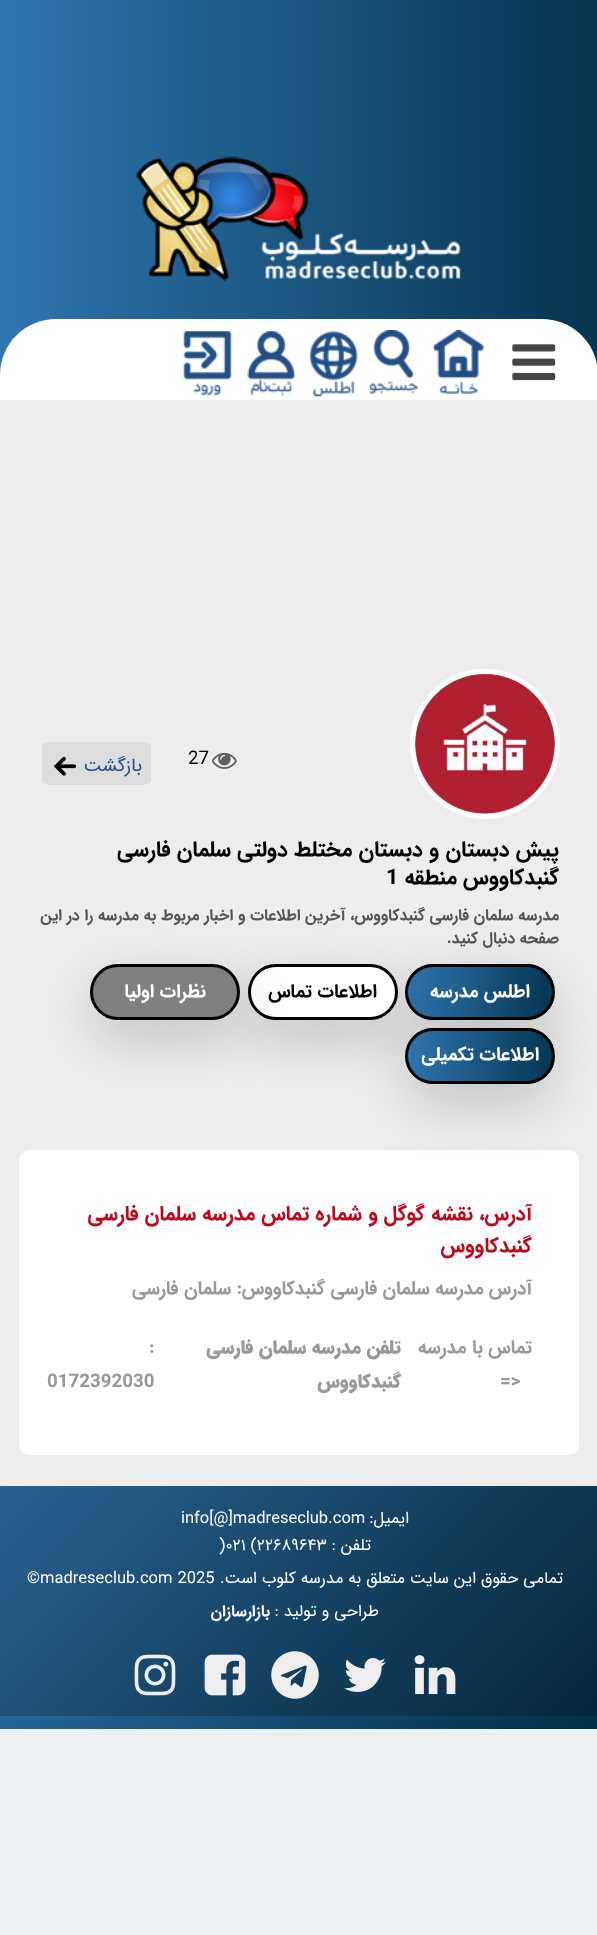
<?xml version="1.0" encoding="UTF-8"?>
<svg xmlns="http://www.w3.org/2000/svg" xmlns:xlink="http://www.w3.org/1999/xlink" width="597" height="1935">
  <defs>
    <linearGradient id="g1" gradientUnits="userSpaceOnUse" x1="0" y1="159" x2="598" y2="159"><stop offset="0" stop-color="#2f75af" /><stop offset="1" stop-color="#063551" /></linearGradient>
    <linearGradient id="g2" gradientUnits="userSpaceOnUse" x1="0" y1="359" x2="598" y2="359"><stop offset="0" stop-color="#2f75af" /><stop offset="1" stop-color="#063551" /></linearGradient>
    <clipPath id="clip1"><rect x="405" y="964" width="150" height="56" rx="28" /></clipPath>
    <linearGradient id="g3" gradientUnits="userSpaceOnUse" x1="408" y1="992" x2="553" y2="992"><stop offset="0" stop-color="#2f75af" /><stop offset="1" stop-color="#063551" /></linearGradient>
    <clipPath id="clip2"><rect x="405" y="1028" width="150" height="56" rx="28" /></clipPath>
    <linearGradient id="g4" gradientUnits="userSpaceOnUse" x1="408" y1="1056" x2="553" y2="1056"><stop offset="0" stop-color="#2f75af" /><stop offset="1" stop-color="#063551" /></linearGradient>
    <linearGradient id="g5" gradientUnits="userSpaceOnUse" x1="89" y1="1398" x2="509" y2="1818"><stop offset="0" stop-color="#337ab7" /><stop offset="1" stop-color="#022e47" /></linearGradient>
    <linearGradient id="g6" gradientUnits="userSpaceOnUse" x1="89" y1="1398" x2="509" y2="1818"><stop offset="0" stop-color="#296292" /><stop offset="1" stop-color="#022539" /></linearGradient>
  </defs>
  <rect width="100%" height="100%" fill="#ecf0f1" />
  <rect y="400" width="597" height="1086" fill="#ededed" />
  <rect width="597" height="319" fill="url(#g1)" />
  <image x="136" y="156" width="325" height="126" xlink:href="image1.png" />
  <rect y="319" width="597" height="56" fill="url(#g2)" />
  <path d="M 56 319 h 486 c 31 0 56 25 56 56 v 25 h -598 v -25 c 0 -31 25 -56 56 -56 z" fill="#ffffff" />
  <image x="512" y="344" width="44" height="37" xlink:href="image2.png" />
  <image x="433" y="330" width="51" height="64" xlink:href="image3.png" />
  <image x="368" y="330" width="51" height="64" xlink:href="image4.png" />
  <image x="309" y="331" width="49" height="66" xlink:href="image5.png" />
  <image x="247" y="331" width="49" height="65" xlink:href="image6.png" />
  <image x="183" y="331" width="49" height="65" xlink:href="image7.png" />
  <image x="211" y="752" width="26" height="17" xlink:href="image8.png" />
  <path d="M 53 742 h 87 c 6 0 11 2 11 5 v 34 c 0 2 -5 4 -11 4 h -87 c -6 0 -11 -2 -11 -4 v -34 c 0 -3 5 -5 11 -5 z" fill="#dddddd" />
  <image x="54" y="756" width="22" height="20" xlink:href="image9.png" />
  <circle cx="485" cy="744" r="72.5" fill="none" stroke="#ffffff" stroke-width="5" />
  <image x="415" y="673" width="140" height="141" xlink:href="image10.png" />
  <rect x="405" y="983" width="150" height="56" rx="28" fill="#000000" fill-opacity="0.18" filter="blur(28px)" />
  <g clip-path="url(#clip1)">
    <rect x="408" y="964" width="145" height="56" fill="url(#g3)" />
  </g>
  <rect x="406.5" y="965.5" width="147" height="53" rx="26.5" fill="none" stroke="#000000" stroke-width="3" />
  <rect x="248" y="983" width="150" height="56" rx="28" fill="#000000" fill-opacity="0.18" filter="blur(28px)" />
  <rect x="249.5" y="965.5" width="147" height="53" rx="26.5" fill="#ffffff" stroke="#000000" stroke-width="3" />
  <rect x="90" y="983" width="150" height="56" rx="28" fill="#000000" fill-opacity="0.18" filter="blur(28px)" />
  <rect x="91.5" y="965.5" width="147" height="53" rx="26.5" fill="#808080" stroke="#000000" stroke-width="3" />
  <rect x="19" y="1150" width="560" height="305" rx="10" fill="#ffffff" />
  <rect x="405" y="1046" width="150" height="57" rx="28.5" fill="#000000" fill-opacity="0.18" filter="blur(28px)" />
  <g clip-path="url(#clip2)">
    <rect x="408" y="1028" width="145" height="56" fill="url(#g4)" />
  </g>
  <rect x="406.5" y="1029.5" width="147" height="53" rx="26.5" fill="none" stroke="#000000" stroke-width="3" />
  <rect y="1716" width="597" height="13" fill="url(#g5)" />
  <rect y="1486" width="597" height="230" fill="url(#g6)" />
  <image x="414" y="1655" width="42" height="40" xlink:href="image11.png" />
  <image x="344" y="1658" width="42" height="34" xlink:href="image12.png" />
  <image x="271" y="1651" width="48" height="48" xlink:href="image13.png" />
  <image x="204" y="1654" width="42" height="42" xlink:href="image14.png" />
  <image x="134" y="1654" width="42" height="42" xlink:href="image15.png" />
  <text x="188" y="764" style="font-family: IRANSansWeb; font-size: 18.75px; fill: #000000">27</text>
  <text x="142" y="771" style="font-family: IRANSansWeb; font-size: 18.75px; direction: rtl; fill: #284f85">بازگشت</text>
  <text x="559" y="856" style="font-family: IRANSansWeb; font-size: 21.6px; font-weight: bold; direction: rtl; fill: #000000">پیش دبستان و دبستان مختلط دولتی سلمان فارسی</text>
  <text x="559" y="884" style="font-family: IRANSansWeb; font-size: 21.6px; font-weight: bold; direction: rtl; fill: #000000">گنبدکاووس منطقه</text>
  <text x="386" y="884" style="font-family: IRANSansWeb; font-size: 21.6px; font-weight: bold; fill: #000000">1</text>
  <text x="559" y="920" style="font-family: IRANSansWeb; font-size: 15.9px; font-weight: bold; direction: rtl; fill: #555555">مدرسه سلمان فارسی</text>
  <text x="425" y="920" style="font-family: IRANSansWeb; font-size: 15.9px; font-weight: bold; direction: rtl; fill: #555555">گنبدکاووس، آخرین اطلاعات و اخبار مربوط به مدرسه را در این</text>
  <text x="559" y="943" style="font-family: IRANSansWeb; font-size: 15.9px; font-weight: bold; direction: rtl; fill: #555555">صفحه دنبال کنید.</text>
  <text x="530" y="997" style="font-family: IRANSansWeb; font-size: 18.75px; font-weight: bold; direction: rtl; fill: #ffffff">اطلس مدرسه</text>
  <text x="377" y="997" style="font-family: IRANSansWeb; font-size: 18.75px; font-weight: bold; direction: rtl; fill: #000000">اطلاعات تماس</text>
  <text x="206" y="997" style="font-family: IRANSansWeb; font-size: 18.75px; font-weight: bold; direction: rtl; fill: #ffffff">نظرات اولیا</text>
  <text x="539" y="1060" style="font-family: IRANSansWeb; font-size: 18.75px; font-weight: bold; direction: rtl; fill: #ffffff">اطلاعات تکمیلی</text>
  <text x="532" y="1220" style="font-family: IRANSansWeb; font-size: 20.6px; font-weight: bold; direction: rtl; fill: #bd081c">آدرس، نقشه گوگل و شماره تماس مدرسه سلمان فارسی</text>
  <text x="532" y="1252" style="font-family: IRANSansWeb; font-size: 20.6px; font-weight: bold; direction: rtl; fill: #bd081c">گنبدکاووس</text>
  <text x="532" y="1294" style="font-family: IRANSansWeb; font-size: 18.75px; font-weight: bold; direction: rtl; fill: #999999">آدرس مدرسه سلمان فارسی</text>
  <text x="325" y="1294" style="font-family: IRANSansWeb; font-size: 18.75px; font-weight: bold; direction: rtl; fill: #999999">گنبدکاووس: سلمان فارسی</text>
  <text x="532" y="1353" style="font-family: IRANSansWeb; font-size: 18.75px; font-weight: bold; direction: rtl; fill: #999999">تماس با مدرسه</text>
  <text x="401" y="1353" style="font-family: IRANSansWeb; font-size: 18.75px; font-weight: 900; direction: rtl; fill: #999999">تلفن مدرسه سلمان فارسی</text>
  <text x="401" y="1387" style="font-family: IRANSansWeb; font-size: 18.75px; font-weight: 900; direction: rtl; fill: #999999">گنبدکاووس</text>
  <text x="149" y="1353" style="font-family: IRANSansWeb; font-size: 18.75px; font-weight: bold; fill: #999999">:</text>
  <text x="500" y="1387" style="font-family: IRANSansWeb; font-size: 18.75px; font-weight: bold; fill: #999999">=&gt;</text>
  <text x="47" y="1387" style="font-family: IRANSansWeb; font-size: 18.75px; font-weight: bold; fill: #999999">0172392030</text>
  <text x="409" y="1523" style="font-family: IRANSansWeb; font-size: 16.5px; direction: rtl; fill: #ffffff">ایمیل:</text>
  <text x="181" y="1523" style="font-family: IRANSansWeb; font-size: 16.5px; fill: #ffffff">info[@]madreseclub.com</text>
  <text x="371" y="1550" style="font-family: IRANSansWeb; font-size: 16.5px; direction: rtl; fill: #ffffff">تلفن :</text>
  <text x="219" y="1550" style="font-family: IRANSansWeb; font-size: 16.5px; fill: #ffffff">)۰۲۱ (۲۲۶۸۹۶۴۳</text>
  <text x="563" y="1583" style="font-family: IRANSansWeb; font-size: 16.5px; direction: rtl; fill: #ffffff">تمامی حقوق این سایت متعلق به مدرسه کلوب است.</text>
  <text x="27" y="1583" style="font-family: IRANSansWeb; font-size: 16.5px; fill: #ffffff">©madreseclub.com 2025</text>
  <text x="379" y="1616" style="font-family: IRANSansWeb; font-size: 16.5px; direction: rtl; fill: #ffffff">طراحی و تولید :</text>
  <text x="270" y="1616" style="font-family: IRANSansWeb; font-size: 15.9px; font-weight: bold; direction: rtl; fill: #f5f5f5">بازارسازان</text>
</svg>
